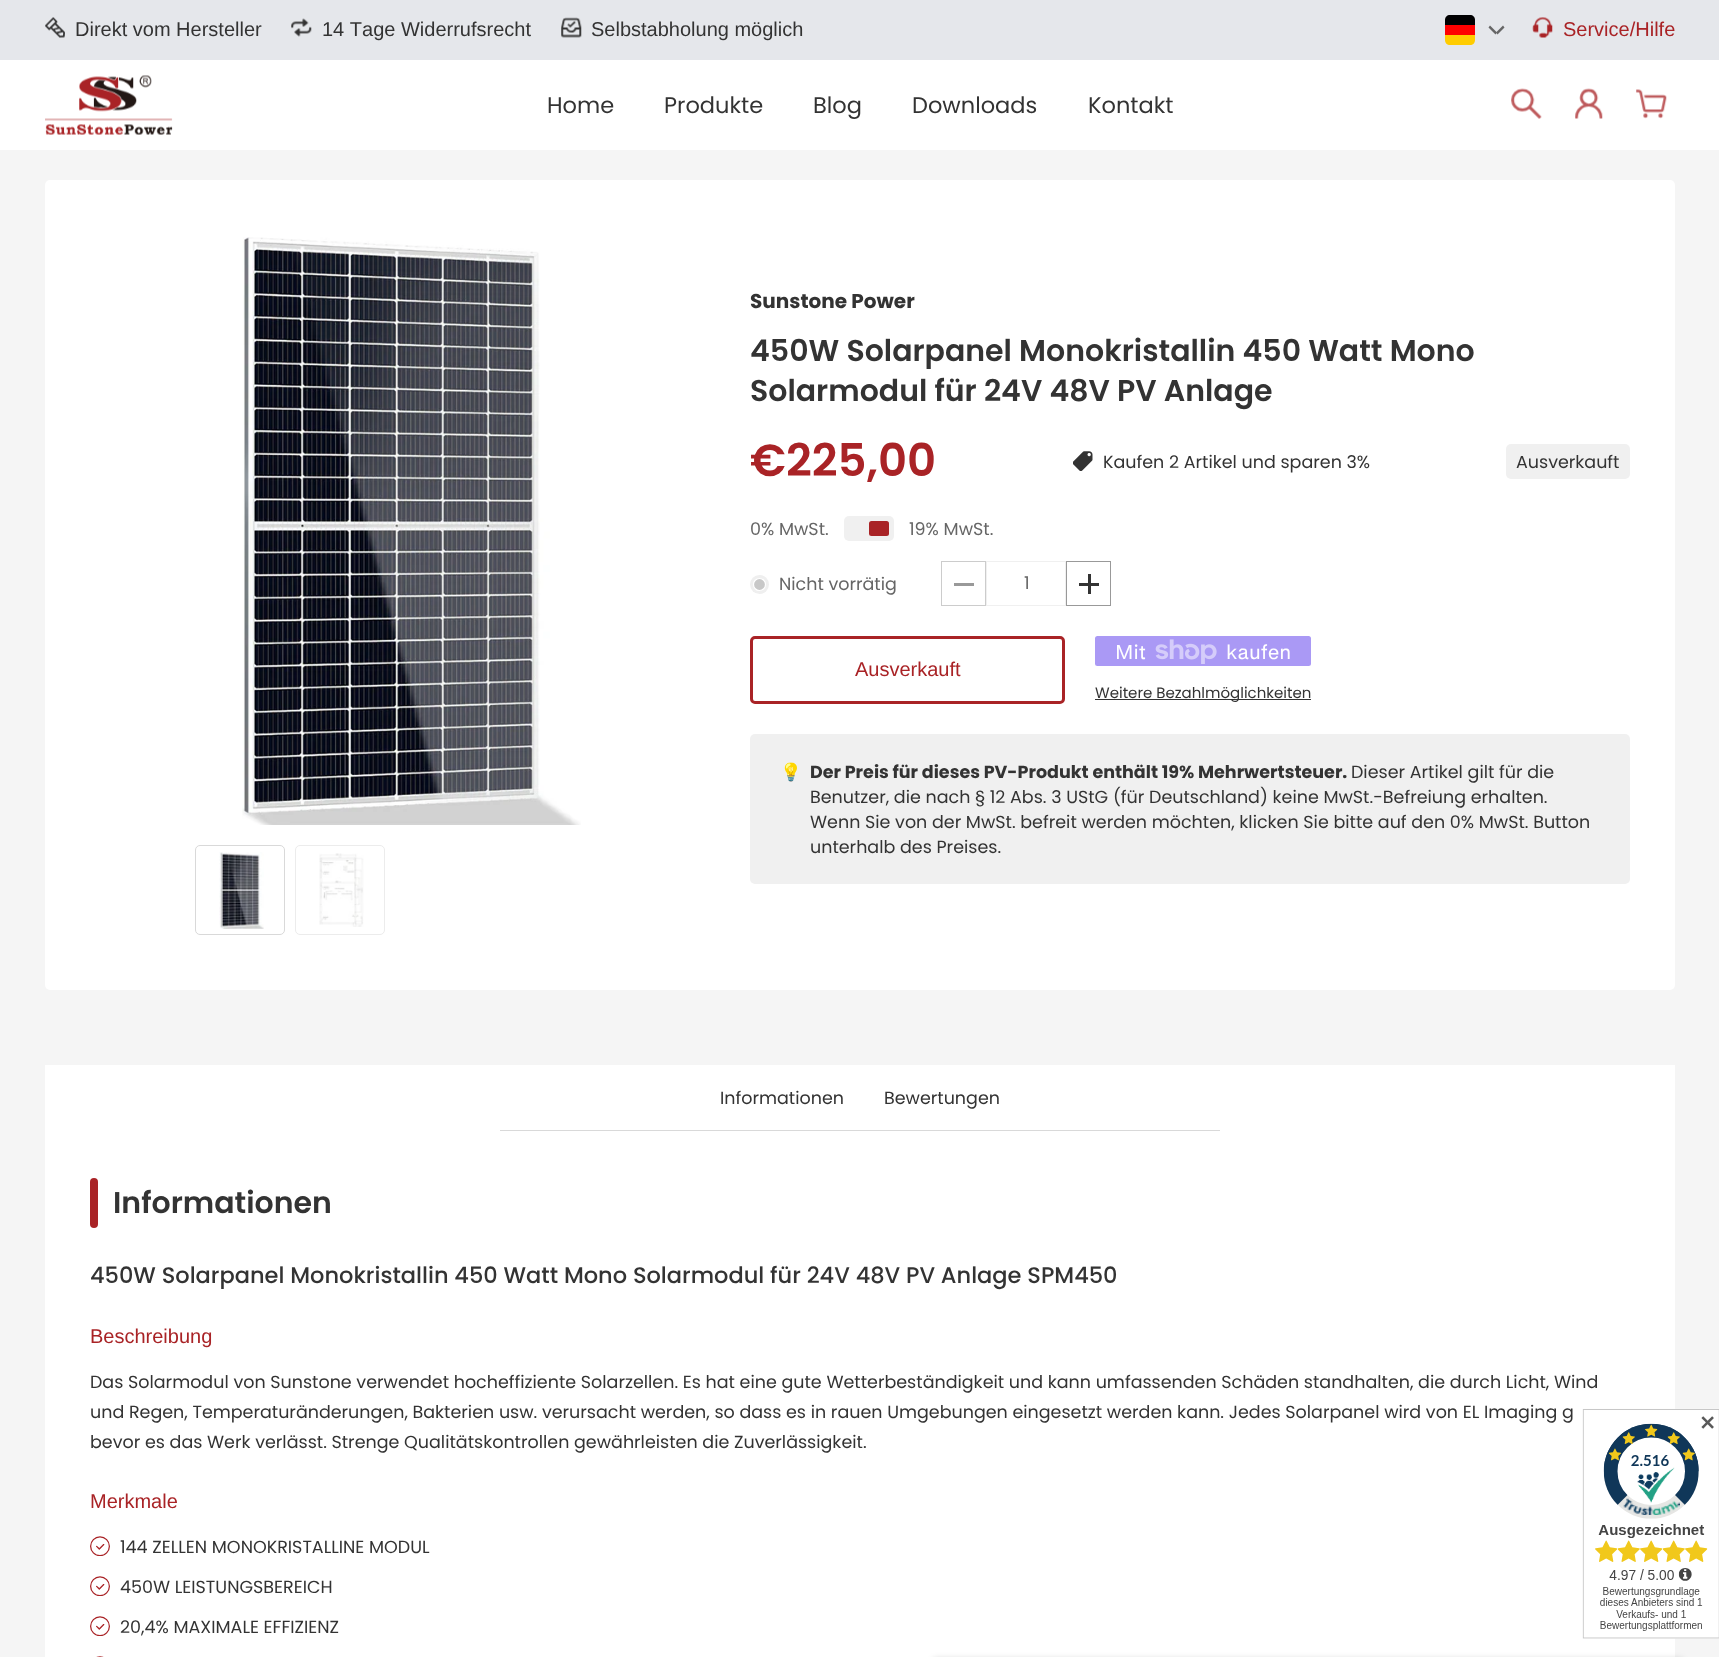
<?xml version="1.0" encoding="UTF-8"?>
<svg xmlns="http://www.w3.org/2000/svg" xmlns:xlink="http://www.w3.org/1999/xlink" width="1719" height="1657">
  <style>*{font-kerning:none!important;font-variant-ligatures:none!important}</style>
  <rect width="100%" height="100%" fill="#f5f5f5" />
  <rect width="1719" height="60" fill="#e5e7eb" />
  <image x="45" y="17" width="20" height="21" xlink:href="image1.png" />
  <image x="291" y="18" width="21" height="19" xlink:href="image2.png" />
  <image x="561" y="17" width="21" height="21" xlink:href="image3.png" />
  <path d="M 1445 35 h 30 v 5 c 0 3 -2 5 -5 5 h -20 c -3 0 -5 -2 -5 -5 z" fill="#ffcc00" />
  <path d="M 1450 15 h 20 c 3 0 5 2 5 5 v 5 h -30 v -5 c 0 -3 2 -5 5 -5 z" fill="#000001" />
  <rect x="1445" y="25" width="30" height="10" fill="#ff0000" />
  <path d="M 1496 32.5 l 7 -7 l 1.5 2 l -7 7 z" fill="#666666" />
  <path d="M 1490 25.5 l 7 7 l -1.5 2 l -7 -7 z" fill="#666666" />
  <image x="1532" y="17" width="21" height="21" xlink:href="image4.png" />
  <rect y="60" width="1719" height="90" fill="#ffffff" />
  <image x="45" y="75" width="128" height="60" xlink:href="image5.png" />
  <image x="1511" y="88" width="31" height="31" xlink:href="image6.png" />
  <image x="1575" y="88" width="28" height="31" xlink:href="image7.png" />
  <image x="1636" y="89" width="31" height="30" xlink:href="image8.png" />
  <rect x="45" y="180" width="1630" height="810" rx="5" fill="#ffffff" />
  <image x="242" y="237" width="339" height="588" xlink:href="image9.png" />
  <rect x="195.5" y="845.5" width="89" height="89" rx="4.5" fill="none" stroke="#d9d9d9" />
  <image x="219" y="852" width="45" height="77" xlink:href="image10.png" />
  <rect x="295.5" y="845.5" width="89" height="89" rx="4.5" fill="none" stroke="#ececec" />
  <image x="319" y="853" width="45" height="74" xlink:href="image11.png" />
  <image x="1073" y="451" width="20" height="20" xlink:href="image12.png" />
  <rect x="1506" y="444" width="124" height="35" rx="5" fill="#f0f0f0" />
  <rect x="844" y="516" width="50" height="25" rx="5" fill="#f0f0f0" />
  <rect x="869" y="521" width="20" height="15" rx="2.5" fill="#a92326" />
  <circle cx="759.5" cy="584.5" r="9.5" fill="#efefef" />
  <circle cx="759.5" cy="584.5" r="6" fill="#c8c8c8" stroke="#ffffff" stroke-width="1.2" />
  <rect x="941.5" y="561.5" width="44" height="44" fill="none" stroke="#cccccc" />
  <rect x="954" y="583" width="20" height="3" fill="#999999" />
  <rect x="986.5" y="561.5" width="79" height="44" fill="none" stroke="#f0f0f0" />
  <rect x="1066.5" y="561.5" width="44" height="44" fill="none" stroke="#999999" />
  <rect x="1079" y="583" width="20" height="3" fill="#333333" />
  <rect x="1088" y="574" width="3" height="20" fill="#333333" />
  <rect x="751.5" y="637.5" width="312" height="65" rx="3.5" fill="none" stroke="#a92326" stroke-width="3" />
  <rect x="1095" y="636" width="216" height="30" rx="2.5" fill="#aa99f5" />
  <image x="1155" y="639" width="62" height="25" xlink:href="image13.png" />
  <rect x="1095" y="699" width="216" height="1" fill="#333333" />
  <rect x="750" y="734" width="880" height="150" rx="5" fill="#f0f0f0" />
  <rect x="45" y="1065" width="1630" height="592" fill="#ffffff" />
  <rect x="500" y="1130" width="720" height="1" fill="#d9d9d9" />
  <rect x="90" y="1178" width="8" height="50" rx="4" fill="#a92326" />
  <image x="90" y="1536" width="20" height="20" xlink:href="image14.png" />
  <image x="90" y="1576" width="20" height="20" xlink:href="image14.png" />
  <image x="90" y="1616" width="20" height="20" xlink:href="image14.png" />
  <image x="96" y="1656" width="8" height="1" xlink:href="image15.png" />
  <image x="1582" y="1408" width="137" height="231" xlink:href="image16.png" />
  <rect x="933" y="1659" width="750" height="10" rx="2.5" fill="#000000" fill-opacity="0.2" filter="blur(3px)" />
  <text x="75" y="36" style="font-family: Liberation Sans; font-size: 20px; fill: #333333">Direkt vom Hersteller</text>
  <text x="322" y="36" style="font-family: Liberation Sans; font-size: 20px; fill: #333333">14 Tage Widerrufsrecht</text>
  <text x="591" y="36" style="font-family: Liberation Sans; font-size: 20px; fill: #333333">Selbstabholung möglich</text>
  <text x="1563" y="36" style="font-family: Liberation Sans; font-size: 20px; fill: #a92326">Service/Hilfe</text>
  <text x="547" y="113" style="font-family: Poppins; font-size: 22.5px; fill: #333333">Home</text>
  <text x="664" y="113" style="font-family: Poppins; font-size: 22.5px; fill: #333333">Produkte</text>
  <text x="813" y="113" style="font-family: Poppins; font-size: 22.5px; fill: #333333">Blog</text>
  <text x="912" y="113" style="font-family: Poppins; font-size: 22.5px; fill: #333333">Downloads</text>
  <text x="1088" y="113" style="font-family: Poppins; font-size: 22.5px; fill: #333333">Kontakt</text>
  <text x="750" y="308" style="font-family: Poppins; font-size: 20px; font-weight: bold; fill: #333333">Sunstone Power</text>
  <text x="750" y="361" style="font-family: Poppins; font-size: 30px; font-weight: 600; fill: #333333">450W Solarpanel Monokristallin 450 Watt Mono</text>
  <text x="750" y="401" style="font-family: Poppins; font-size: 30px; font-weight: 600; fill: #333333">Solarmodul für 24V 48V PV Anlage</text>
  <text x="750" y="476" style="font-family: Poppins; font-size: 45px; font-weight: 600; fill: #a92326">€225,00</text>
  <text x="1103" y="468" style="font-family: Poppins; font-size: 17.5px; fill: #333333">Kaufen 2 Artikel und sparen 3%</text>
  <text x="1516" y="468" style="font-family: Poppins; font-size: 17.5px; fill: #333333">Ausverkauft</text>
  <text x="750" y="535" style="font-family: Poppins; font-size: 17.5px; fill: #666666">0% MwSt.</text>
  <text x="909" y="535" style="font-family: Poppins; font-size: 17.5px; fill: #666666">19% MwSt.</text>
  <text x="779" y="590" style="font-family: Poppins; font-size: 17.5px; fill: #666666">Nicht vorrätig</text>
  <text x="1024" y="589" style="font-family: Poppins; font-size: 17.5px; fill: #666666">1</text>
  <text x="855" y="676" style="font-family: Liberation Sans; font-size: 20px; fill: #a92326">Ausverkauft</text>
  <text x="1115" y="659" style="font-family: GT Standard; font-size: 20px; fill: #ffffff">Mit</text>
  <text x="1226" y="659" style="font-family: GT Standard; font-size: 20px; fill: #ffffff">kaufen</text>
  <text x="1095" y="698" style="font-family: Poppins; font-size: 15px; fill: #333333">Weitere Bezahlmöglichkeiten</text>
  <text x="780" y="778" style="font-family: Noto Color Emoji; font-size: 17.5px; fill: #333333">💡</text>
  <text x="810" y="778" style="font-family: Poppins; font-size: 17.5px; font-weight: bold; fill: #333333">Der Preis für dieses PV-Produkt enthält 19% Mehrwertsteuer.</text>
  <text x="1351" y="778" style="font-family: Poppins; font-size: 17.5px; fill: #333333">Dieser Artikel gilt für die</text>
  <text x="810" y="803" style="font-family: Poppins; font-size: 17.5px; fill: #333333">Benutzer, die nach § 12 Abs. 3 UStG (für Deutschland) keine MwSt.-Befreiung erhalten.</text>
  <text x="810" y="828" style="font-family: Poppins; font-size: 17.5px; fill: #333333">Wenn Sie von der MwSt. befreit werden möchten, klicken Sie bitte auf den 0% MwSt. Button</text>
  <text x="810" y="853" style="font-family: Poppins; font-size: 17.5px; fill: #333333">unterhalb des Preises.</text>
  <text x="720" y="1104" style="font-family: Poppins; font-size: 17.5px; fill: #333333">Informationen</text>
  <text x="884" y="1104" style="font-family: Poppins; font-size: 17.5px; fill: #333333">Bewertungen</text>
  <text x="113" y="1213" style="font-family: Poppins; font-size: 30px; font-weight: 600; fill: #333333">Informationen</text>
  <text x="90" y="1283" style="font-family: Poppins; font-size: 22.5px; font-weight: 500; fill: #333333">450W Solarpanel Monokristallin 450 Watt Mono Solarmodul für 24V 48V PV Anlage SPM450</text>
  <text x="90" y="1343" style="font-family: Liberation Sans; font-size: 20px; fill: #a92326">Beschreibung</text>
  <text x="90" y="1388" style="font-family: Poppins; font-size: 17.5px; fill: #333333">Das Solarmodul von Sunstone verwendet hocheffiziente Solarzellen. Es hat eine gute Wetterbeständigkeit und kann umfassenden Schäden standhalten, die durch Licht, Wind</text>
  <text x="90" y="1418" style="font-family: Poppins; font-size: 17.5px; fill: #333333">und Regen, Temperaturänderungen, Bakterien usw. verursacht werden, so dass es in rauen Umgebungen eingesetzt werden kann. Jedes Solarpanel wird von EL Imaging g</text>
  <text x="90" y="1448" style="font-family: Poppins; font-size: 17.5px; fill: #333333">bevor es das Werk verlässt. Strenge Qualitätskontrollen gewährleisten die Zuverlässigkeit.</text>
  <text x="90" y="1508" style="font-family: Liberation Sans; font-size: 20px; fill: #a92326">Merkmale</text>
  <text x="120" y="1553" style="font-family: Poppins; font-size: 17.5px; fill: #333333">144 ZELLEN MONOKRISTALLINE MODUL</text>
  <text x="120" y="1593" style="font-family: Poppins; font-size: 17.5px; fill: #333333">450W LEISTUNGSBEREICH</text>
  <text x="120" y="1633" style="font-family: Poppins; font-size: 17.5px; fill: #333333">20,4% MAXIMALE EFFIZIENZ</text>
  <text x="1699" y="1430" style="font-family: DejaVu Sans; font-size: 20px; font-weight: bold; fill: #595959">✕</text>
</svg>
